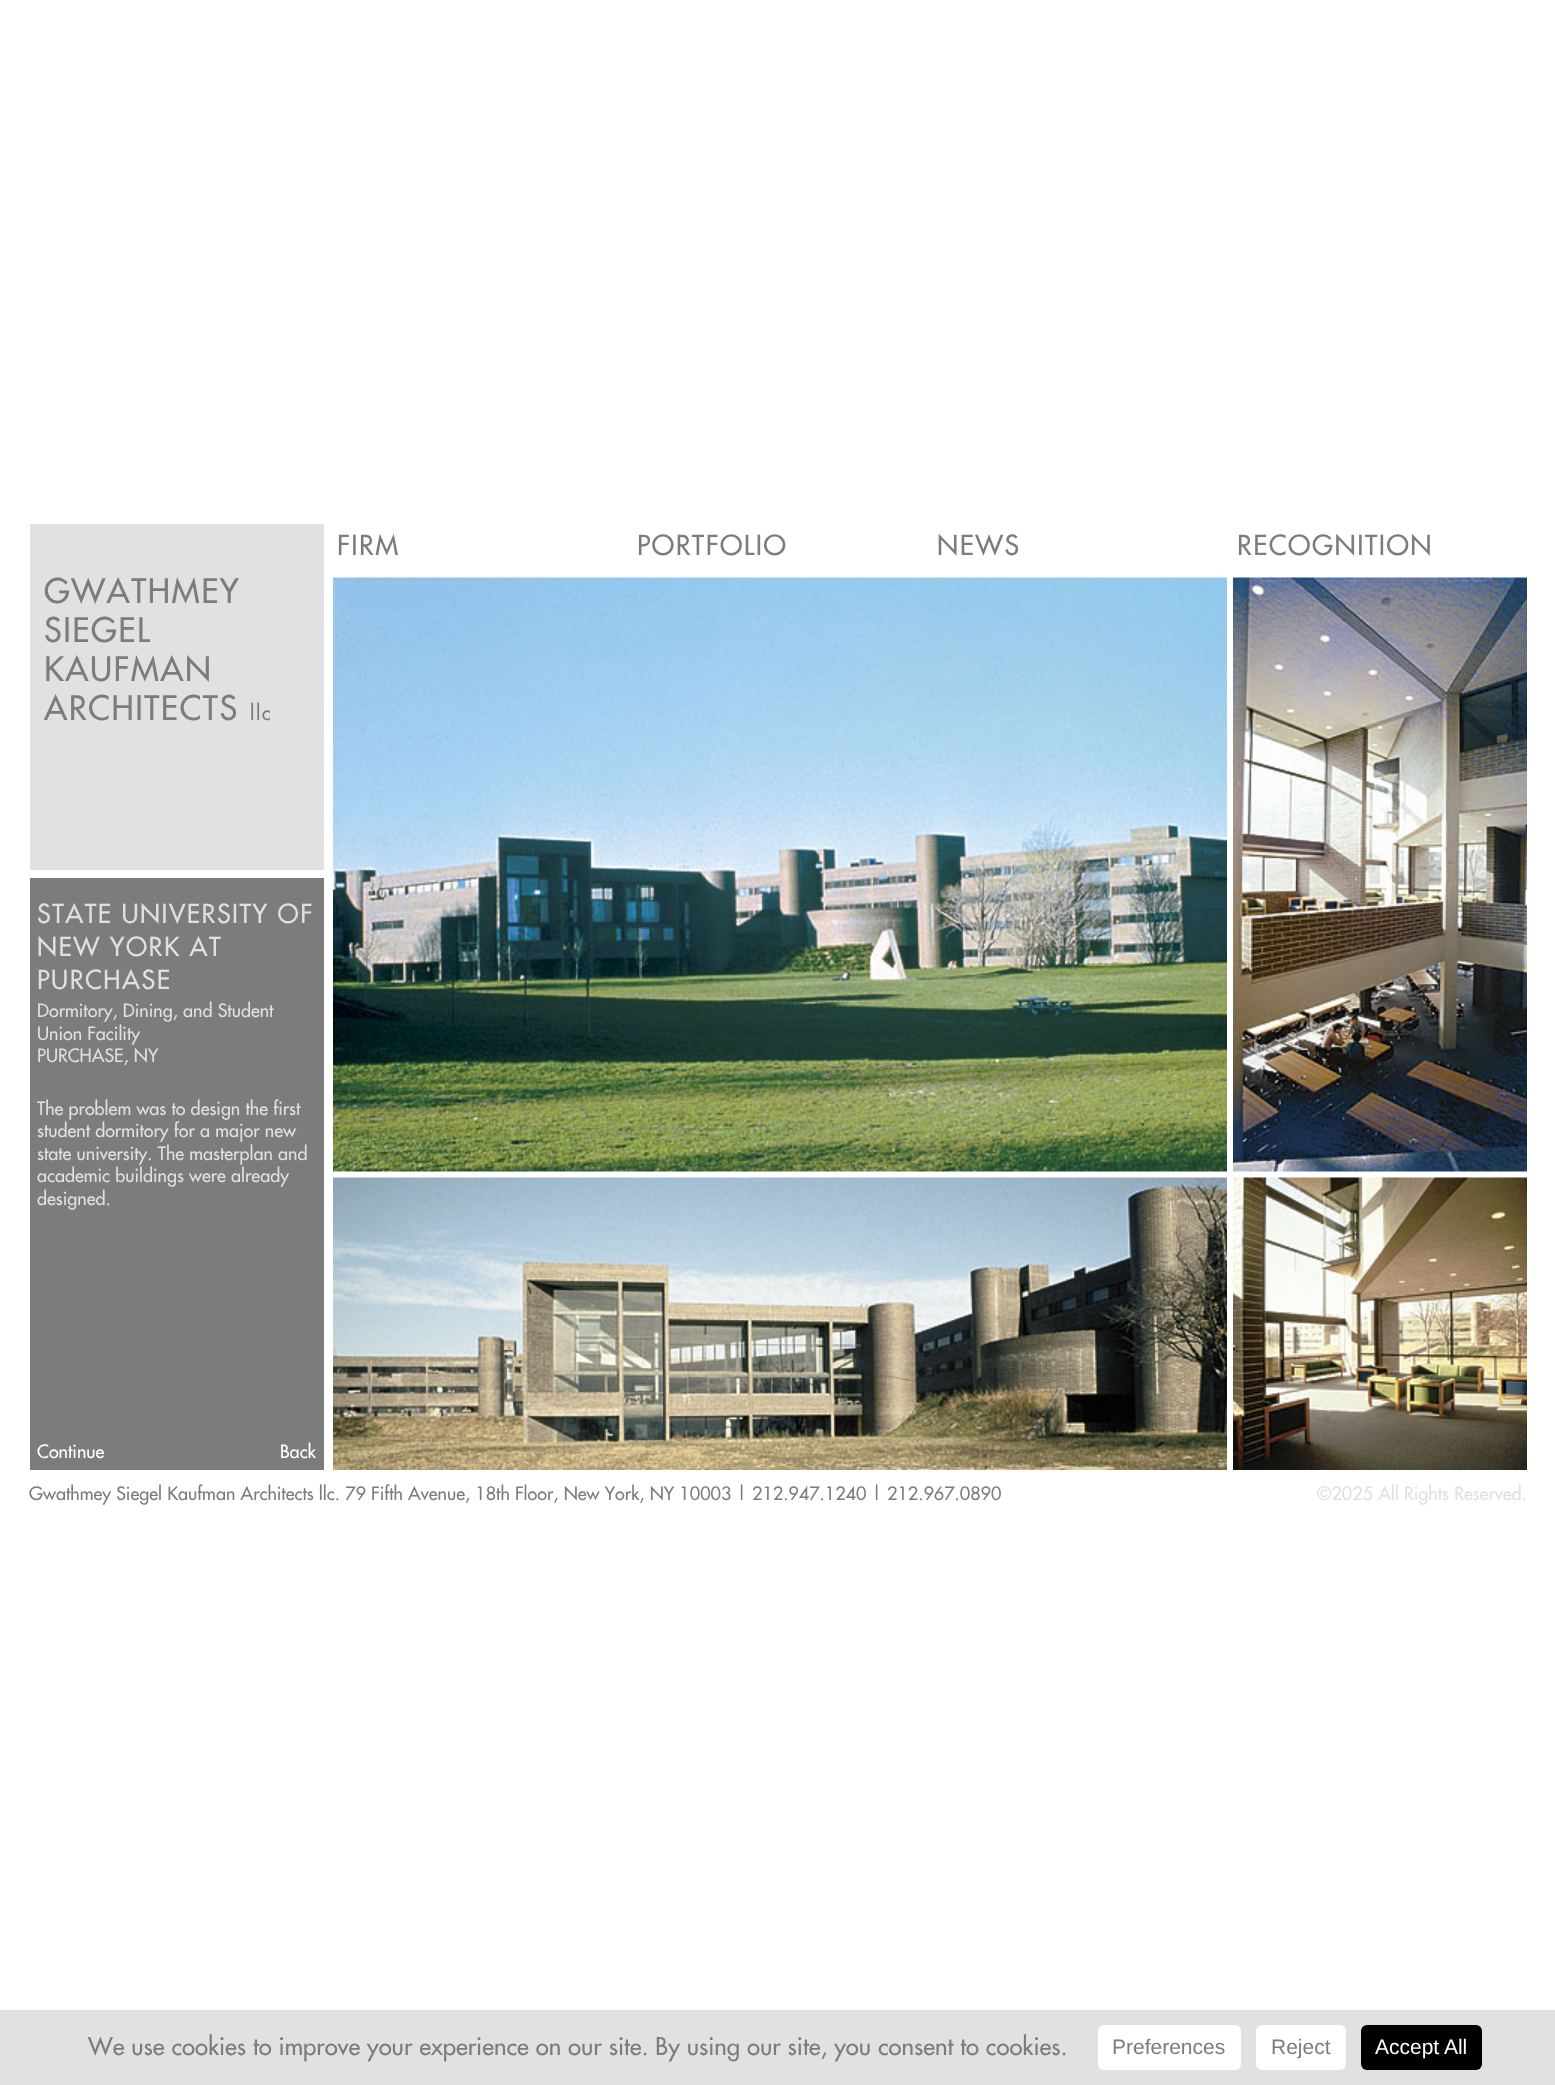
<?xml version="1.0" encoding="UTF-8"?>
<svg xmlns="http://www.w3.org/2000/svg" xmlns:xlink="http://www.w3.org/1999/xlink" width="1555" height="2085">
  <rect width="100%" height="100%" fill="#ffffff" />
  <image x="333" y="577" width="894" height="595" xlink:href="image1.png" />
  <image x="1233" y="577" width="294" height="595" xlink:href="image2.png" />
  <image x="333" y="1177" width="894" height="293" xlink:href="image3.png" />
  <image x="1233" y="1177" width="294" height="293" xlink:href="image4.png" />
  <rect x="30" y="524" width="294" height="346" fill="#e1e1e1" />
  <rect x="30" y="878" width="294" height="592" fill="#7c7c7c" />
  <rect y="2010" width="1555" height="75" fill="#e1e1e1" />
  <rect x="1098" y="2025" width="143" height="45" rx="6" fill="#ffffff" />
  <rect x="1256" y="2025" width="90" height="45" rx="6" fill="#ffffff" />
  <rect x="1361" y="2025" width="121" height="45" rx="6" fill="#000000" />
  <text x="337" y="555" style="font-family: Futura; font-size: 27px; letter-spacing: 1.5px; fill: #7c7c7c">FIRM</text>
  <text x="637" y="555" style="font-family: Futura; font-size: 27px; letter-spacing: 1.5px; fill: #7c7c7c">PORTFOLIO</text>
  <text x="937" y="555" style="font-family: Futura; font-size: 27px; letter-spacing: 1.5px; fill: #7c7c7c">NEWS</text>
  <text x="1237" y="555" style="font-family: Futura; font-size: 27px; letter-spacing: 1.5px; fill: #7c7c7c">RECOGNITION</text>
  <text x="44" y="603" style="font-family: Futura; font-size: 33px; letter-spacing: 1.5px; fill: #7c7c7c">GWATHMEY</text>
  <text x="44" y="642" style="font-family: Futura; font-size: 33px; letter-spacing: 1.5px; fill: #7c7c7c">SIEGEL</text>
  <text x="44" y="681" style="font-family: Futura; font-size: 33px; letter-spacing: 1.5px; fill: #7c7c7c">KAUFMAN</text>
  <text x="44" y="720" style="font-family: Futura; font-size: 33px; letter-spacing: 1.5px; fill: #7c7c7c">ARCHITECTS</text>
  <text x="250" y="720" style="font-family: Futura; font-size: 20px; letter-spacing: 1.5px; fill: #7c7c7c">llc</text>
  <text x="37" y="923" style="font-family: Futura; font-size: 25.5px; letter-spacing: 1.5px; fill: #e0e0e0">STATE UNIVERSITY OF</text>
  <text x="37" y="956" style="font-family: Futura; font-size: 25.5px; letter-spacing: 1.5px; fill: #e0e0e0">NEW YORK AT</text>
  <text x="37" y="989" style="font-family: Futura; font-size: 25.5px; letter-spacing: 1.5px; fill: #e0e0e0">PURCHASE</text>
  <text x="37" y="1017" style="font-family: Futura; font-size: 18px; fill: #e0e0e0">Dormitory, Dining, and Student</text>
  <text x="37" y="1040" style="font-family: Futura; font-size: 18px; fill: #e0e0e0">Union Facility</text>
  <text x="37" y="1062" style="font-family: Futura; font-size: 18px; fill: #e0e0e0">PURCHASE, NY</text>
  <text x="37" y="1115" style="font-family: Futura; font-size: 18px; fill: #e0e0e0">The problem was to design the first</text>
  <text x="37" y="1137" style="font-family: Futura; font-size: 18px; fill: #e0e0e0">student dormitory for a major new</text>
  <text x="37" y="1160" style="font-family: Futura; font-size: 18px; fill: #e0e0e0">state university. The masterplan and</text>
  <text x="37" y="1182" style="font-family: Futura; font-size: 18px; fill: #e0e0e0">academic buildings were already</text>
  <text x="37" y="1205" style="font-family: Futura; font-size: 18px; fill: #e0e0e0">designed.</text>
  <text x="37" y="1458" style="font-family: Futura; font-size: 18px; fill: #ffffff">Continue</text>
  <text x="280" y="1458" style="font-family: Futura; font-size: 18px; fill: #ffffff">Back</text>
  <text x="29" y="1500" style="font-family: Futura; font-size: 18px; fill: #7c7c7c">Gwathmey Siegel Kaufman Architects llc. 79 Fifth Avenue, 18th Floor, New York, NY 10003 | 212.947.1240 | 212.967.0890</text>
  <text x="1317" y="1500" style="font-family: Futura; font-size: 18px; fill: #e0e0e0">©2025 All Rights Reserved.</text>
  <text x="88" y="2055" style="font-family: Futura; font-size: 24px; fill: #7c7c7c">We use cookies to improve your experience on our site. By using our site, you consent to cookies.</text>
  <text x="1112" y="2054" style="font-family: Liberation Sans; font-size: 21px; fill: #7c7c7c">Preferences</text>
  <text x="1271" y="2054" style="font-family: Liberation Sans; font-size: 21px; fill: #7c7c7c">Reject</text>
  <text x="1375" y="2054" style="font-family: Liberation Sans; font-size: 21px; fill: #ffffff">Accept All</text>
</svg>
